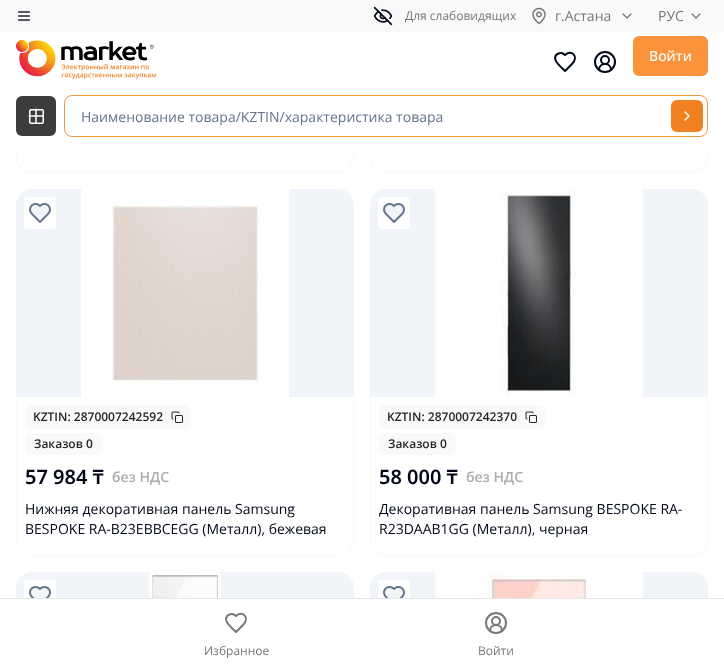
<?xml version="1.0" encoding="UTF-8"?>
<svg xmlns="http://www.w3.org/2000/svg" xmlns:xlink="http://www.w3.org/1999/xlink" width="724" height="667">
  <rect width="100%" height="100%" fill="#ffffff" />
  <path d="M 17 14 h -1 v 143 c 0 9 7 16 16 16 h 306 c 9 0 16 -7 16 -16 v -143 h -1 v 143 c 0 8 -7 15 -15 15 h -306 c -8 0 -15 -7 -15 -15 z" fill="#faf9f9" />
  <path d="M 371 14 h -1 v 143 c 0 9 7 16 16 16 h 306 c 9 0 16 -7 16 -16 v -143 h -1 v 143 c 0 8 -7 15 -15 15 h -306 c -8 0 -15 -7 -15 -15 z" fill="#faf9f9" />
  <rect x="16" y="32" width="692" height="121" fill="#ffffff" />
  <rect width="724" height="32" fill="#faf9f9" />
  <image x="18" y="11" width="12" height="10" xlink:href="image1.png" />
  <image x="373" y="6" width="20" height="20" xlink:href="image2.png" />
  <image x="532" y="7" width="14" height="18" xlink:href="image3.png" />
  <path d="M 623 14 l 4 4 l 4 -4" fill="none" stroke="#787878" stroke-width="1.3" stroke-linecap="round" stroke-linejoin="round" />
  <path d="M 692 14 l 4 4 l 4 -4" fill="none" stroke="#787878" stroke-width="1.3" stroke-linecap="round" stroke-linejoin="round" />
  <image x="16" y="40" width="141" height="39" xlink:href="image4.png" />
  <path d="M 572 64 c 7.5 -7.5 -1 -15 -7 -9 c -4 -4 -11.5 -1 -9.5 5 c 1 3.5 7 8.5 9.5 11 z m 39 6 c 0 -8 -12 -8 -12 0" fill="none" stroke="#020817" stroke-width="2" stroke-linecap="round" stroke-linejoin="round" />
  <rect x="633" y="36" width="75" height="40" rx="6" fill="#fb923c" />
  <circle cx="605" cy="60" r="4" fill="none" stroke="#020817" stroke-width="2" />
  <circle cx="605" cy="62" r="10" fill="none" stroke="#020817" stroke-width="2" />
  <rect x="16" y="96" width="40" height="40" rx="6" fill="#3c3c3c" />
  <image x="28" y="108" width="16" height="16" xlink:href="image5.png" />
  <rect x="64.5" y="95.5" width="643" height="41" rx="7.5" fill="none" stroke="#f19b38" />
  <rect x="671" y="100" width="32" height="32" rx="6" fill="#f18021" />
  <path d="M 685 120 l 4 -4 l -4 -4" fill="none" stroke="#ffffff" stroke-width="1.3" stroke-linecap="round" stroke-linejoin="round" />
  <path d="M 32 189 h 306 c 9 0 16 7 16 16 v 192 h -338 v -192 c 0 -9 7 -16 16 -16 z" fill="#f1f5f9" />
  <image x="81" y="189" width="208" height="208" xlink:href="image6.png" />
  <rect x="24" y="197" width="32" height="32" rx="4" fill="#ffffff" />
  <image x="29" y="203" width="22" height="20" xlink:href="image7.png" />
  <path d="M 17 397 h -1 v 143 c 0 9 7 16 16 16 h 306 c 9 0 16 -7 16 -16 v -143 h -1 v 143 c 0 8 -7 15 -15 15 h -306 c -8 0 -15 -7 -15 -15 z" fill="#faf9f9" />
  <rect x="25" y="405" width="166" height="24" rx="6" fill="#faf9f9" />
  <image x="171" y="411" width="12" height="12" xlink:href="image8.png" />
  <rect x="25" y="433" width="77" height="22" rx="6" fill="#faf9f9" />
  <path d="M 386 189 h 306 c 9 0 16 7 16 16 v 192 h -338 v -192 c 0 -9 7 -16 16 -16 z" fill="#f1f5f9" />
  <image x="435" y="189" width="208" height="208" xlink:href="image9.png" />
  <rect x="378" y="197" width="32" height="32" rx="4" fill="#ffffff" />
  <image x="383" y="203" width="22" height="20" xlink:href="image7.png" />
  <path d="M 371 397 h -1 v 143 c 0 9 7 16 16 16 h 306 c 9 0 16 -7 16 -16 v -143 h -1 v 143 c 0 8 -7 15 -15 15 h -306 c -8 0 -15 -7 -15 -15 z" fill="#faf9f9" />
  <rect x="379" y="405" width="166" height="24" rx="6" fill="#faf9f9" />
  <image x="525" y="411" width="12" height="12" xlink:href="image8.png" />
  <rect x="379" y="433" width="77" height="22" rx="6" fill="#faf9f9" />
  <path d="M 32 572 h 306 c 9 0 16 7 16 16 v 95 h -338 v -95 c 0 -9 7 -16 16 -16 z" fill="#f1f5f9" />
  <image x="149" y="572" width="72" height="26" xlink:href="image10.png" />
  <rect x="24" y="580" width="32" height="32" rx="4" fill="#ffffff" />
  <image x="29" y="586" width="22" height="12" xlink:href="image11.png" />
  <path d="M 386 572 h 306 c 9 0 16 7 16 16 v 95 h -338 v -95 c 0 -9 7 -16 16 -16 z" fill="#f1f5f9" />
  <image x="435" y="572" width="208" height="26" xlink:href="image12.png" />
  <rect x="378" y="580" width="32" height="32" rx="4" fill="#ffffff" />
  <image x="383" y="586" width="22" height="12" xlink:href="image11.png" />
  <rect x="16" y="599" width="692" height="68" fill="#ffffff" />
  <rect y="598" width="724" height="1" fill="#e5e5e5" />
  <path d="M 243 625 c 7.5 -7.5 -1 -15 -7 -9 c -4 -4 -11.5 -1 -9.5 5 c 1 3.5 7 8.5 9.5 11 z" fill="none" stroke="#787878" stroke-width="2" stroke-linecap="round" stroke-linejoin="round" />
  <path d="M 502 631 c 0 -8 -12 -8 -12 0" fill="none" stroke="#787878" stroke-width="2" stroke-linecap="round" stroke-linejoin="round" />
  <circle cx="496" cy="621" r="4" fill="none" stroke="#787878" stroke-width="2" />
  <circle cx="496" cy="623" r="10" fill="none" stroke="#787878" stroke-width="2" />
  <text x="405" y="20" style="font-family: Open Sans; font-size: 12px; fill: #787878">Для слабовидящих</text>
  <text x="555" y="21" style="font-family: Open Sans; font-size: 14px; fill: #787878">г.Астана</text>
  <text x="658" y="21" style="font-family: Open Sans; font-size: 14px; fill: #787878">РУС</text>
  <text x="649" y="61" style="font-family: Open Sans; font-size: 14px; font-weight: 500; fill: #ffffff">Войти</text>
  <text x="81" y="122" style="font-family: Open Sans; font-size: 14px; fill: #64748b">Наименование товара/KZTIN/характеристика товара</text>
  <text x="33" y="421" style="font-family: Open Sans; font-size: 12px; font-weight: 600; fill: #262626">KZTIN: 2870007242592</text>
  <text x="34" y="448" style="font-family: Open Sans; font-size: 12px; font-weight: 600; fill: #262626">Заказов 0</text>
  <text x="25" y="484" style="font-family: Noto Sans; font-size: 20px; font-weight: 600; fill: #020817">57 984 ₸</text>
  <text x="112" y="482" style="font-family: Open Sans; font-size: 14px; font-weight: 600; fill: #acacac">без НДС</text>
  <text x="25" y="514" style="font-family: Open Sans; font-size: 14px; fill: #020817">Нижняя декоративная панель Samsung</text>
  <text x="25" y="534" style="font-family: Open Sans; font-size: 14px; fill: #020817">BESPOKE RA-B23EBBCEGG (Металл), бежевая</text>
  <text x="387" y="421" style="font-family: Open Sans; font-size: 12px; font-weight: 600; fill: #262626">KZTIN: 2870007242370</text>
  <text x="388" y="448" style="font-family: Open Sans; font-size: 12px; font-weight: 600; fill: #262626">Заказов 0</text>
  <text x="379" y="484" style="font-family: Noto Sans; font-size: 20px; font-weight: 600; fill: #020817">58 000 ₸</text>
  <text x="466" y="482" style="font-family: Open Sans; font-size: 14px; font-weight: 600; fill: #acacac">без НДС</text>
  <text x="379" y="514" style="font-family: Open Sans; font-size: 14px; fill: #020817">Декоративная панель Samsung BESPOKE RA-</text>
  <text x="379" y="534" style="font-family: Open Sans; font-size: 14px; fill: #020817">R23DAAB1GG (Металл), черная</text>
  <text x="204" y="655" style="font-family: Open Sans; font-size: 12px; fill: #787878">Избранное</text>
  <text x="478" y="655" style="font-family: Open Sans; font-size: 12px; fill: #787878">Войти</text>
</svg>
